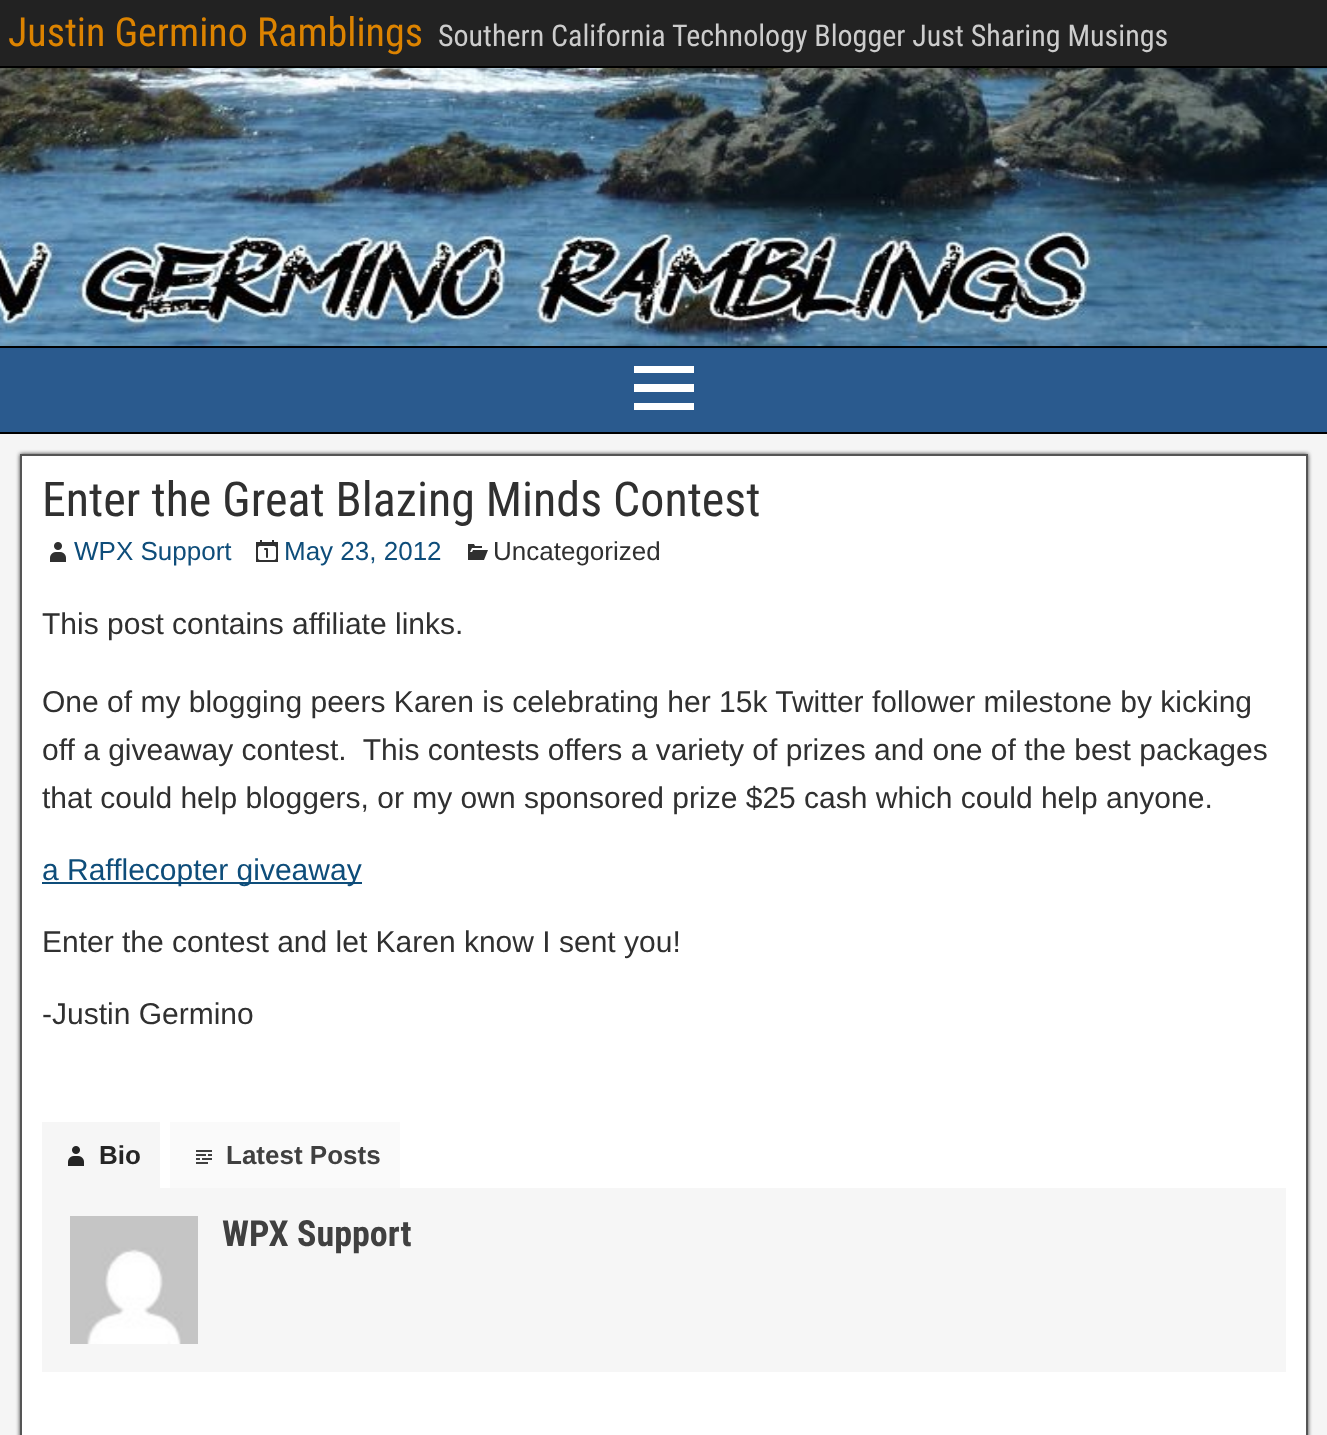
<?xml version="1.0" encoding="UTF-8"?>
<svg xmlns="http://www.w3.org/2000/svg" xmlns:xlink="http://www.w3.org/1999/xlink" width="1327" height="1435">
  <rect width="100%" height="100%" fill="#222222" />
  <rect y="66" width="1327" height="2" fill="#000000" />
  <image x="0" y="68" width="1327" height="278" xlink:href="image1.png" />
  <rect y="346" width="1327" height="2" fill="#000000" />
  <rect y="348" width="1327" height="84" fill="#2a5a8e" />
  <rect y="432" width="1327" height="2" fill="#000000" />
  <path d="M 634 410 v -7 h 60 v 7 z m 0 -18 v -8 h 60 v 8 z m 0 -19 v -7 h 60 v 7 z" fill="#ffffff" />
  <rect y="434" width="1327" height="1001" fill="#f5f5f5" />
  <rect x="20" y="454" width="1288" height="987" fill="#333333" filter="blur(2px)" />
  <rect x="21" y="455" width="1286" height="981" fill="#ffffff" stroke="#555555" stroke-width="2" />
  <image x="50" y="542" width="16" height="20" xlink:href="image2.png" />
  <image x="256" y="540" width="22" height="22" xlink:href="image3.png" />
  <image x="468" y="544" width="20" height="16" xlink:href="image4.png" />
  <rect x="42" y="882" width="320" height="2" fill="#0e4d7a" />
  <rect x="42" y="1122" width="118" height="66" fill="#f6f6f6" />
  <image x="68" y="1146" width="16" height="20" xlink:href="image5.png" />
  <rect x="170" y="1122" width="230" height="66" fill="#fafafa" />
  <image x="196" y="1150" width="16" height="14" xlink:href="image6.png" />
  <rect x="42" y="1188" width="1244" height="184" fill="#f6f6f6" />
  <image x="70" y="1216" width="128" height="128" xlink:href="image7.png" />
  <text x="8" y="46" style="font-family: Roboto Condensed; font-size: 40px; fill: #dc8300">Justin Germino Ramblings</text>
  <text x="438" y="46" style="font-family: Roboto Condensed; font-size: 30px; fill: #cccccc">Southern California Technology Blogger Just Sharing Musings</text>
  <text x="42" y="516" style="font-family: Roboto Condensed; font-size: 48px; fill: #303030">Enter the Great Blazing Minds Contest</text>
  <text x="74" y="560" style="font-family: Liberation Sans; font-size: 26px; fill: #0e4d7a">WPX Support</text>
  <text x="284" y="560" style="font-family: Liberation Sans; font-size: 26px; fill: #0e4d7a">May 23, 2012</text>
  <text x="493" y="560" style="font-family: Liberation Sans; font-size: 26px; fill: #303030">Uncategorized</text>
  <text x="42" y="634" style="font-family: Arimo; font-size: 30px; fill: #303030">This post contains affiliate links.</text>
  <text x="42" y="712" style="font-family: Arimo; font-size: 30px; fill: #303030">One of my blogging peers Karen is celebrating her 15k Twitter follower milestone by kicking</text>
  <text x="42" y="760" style="font-family: Arimo; font-size: 30px; fill: #303030" xml:space="preserve">off a giveaway contest.  This contests offers a variety of prizes and one of the best packages</text>
  <text x="42" y="808" style="font-family: Arimo; font-size: 30px; fill: #303030">that could help bloggers, or my own sponsored prize $25 cash which could help anyone.</text>
  <text x="42" y="880" style="font-family: Arimo; font-size: 30px; fill: #0e4d7a">a Rafflecopter giveaway</text>
  <text x="42" y="952" style="font-family: Arimo; font-size: 30px; fill: #303030">Enter the contest and let Karen know I sent you!</text>
  <text x="42" y="1024" style="font-family: Arimo; font-size: 30px; fill: #303030">-Justin Germino</text>
  <text x="99" y="1164" style="font-family: Arimo; font-size: 26px; font-weight: bold; fill: #252525">Bio</text>
  <text x="226" y="1164" style="font-family: Arimo; font-size: 26px; font-weight: bold; fill: #404040">Latest Posts</text>
  <text x="222" y="1246" style="font-family: Roboto Condensed; font-size: 36px; font-weight: bold; fill: #404040">WPX Support</text>
</svg>
